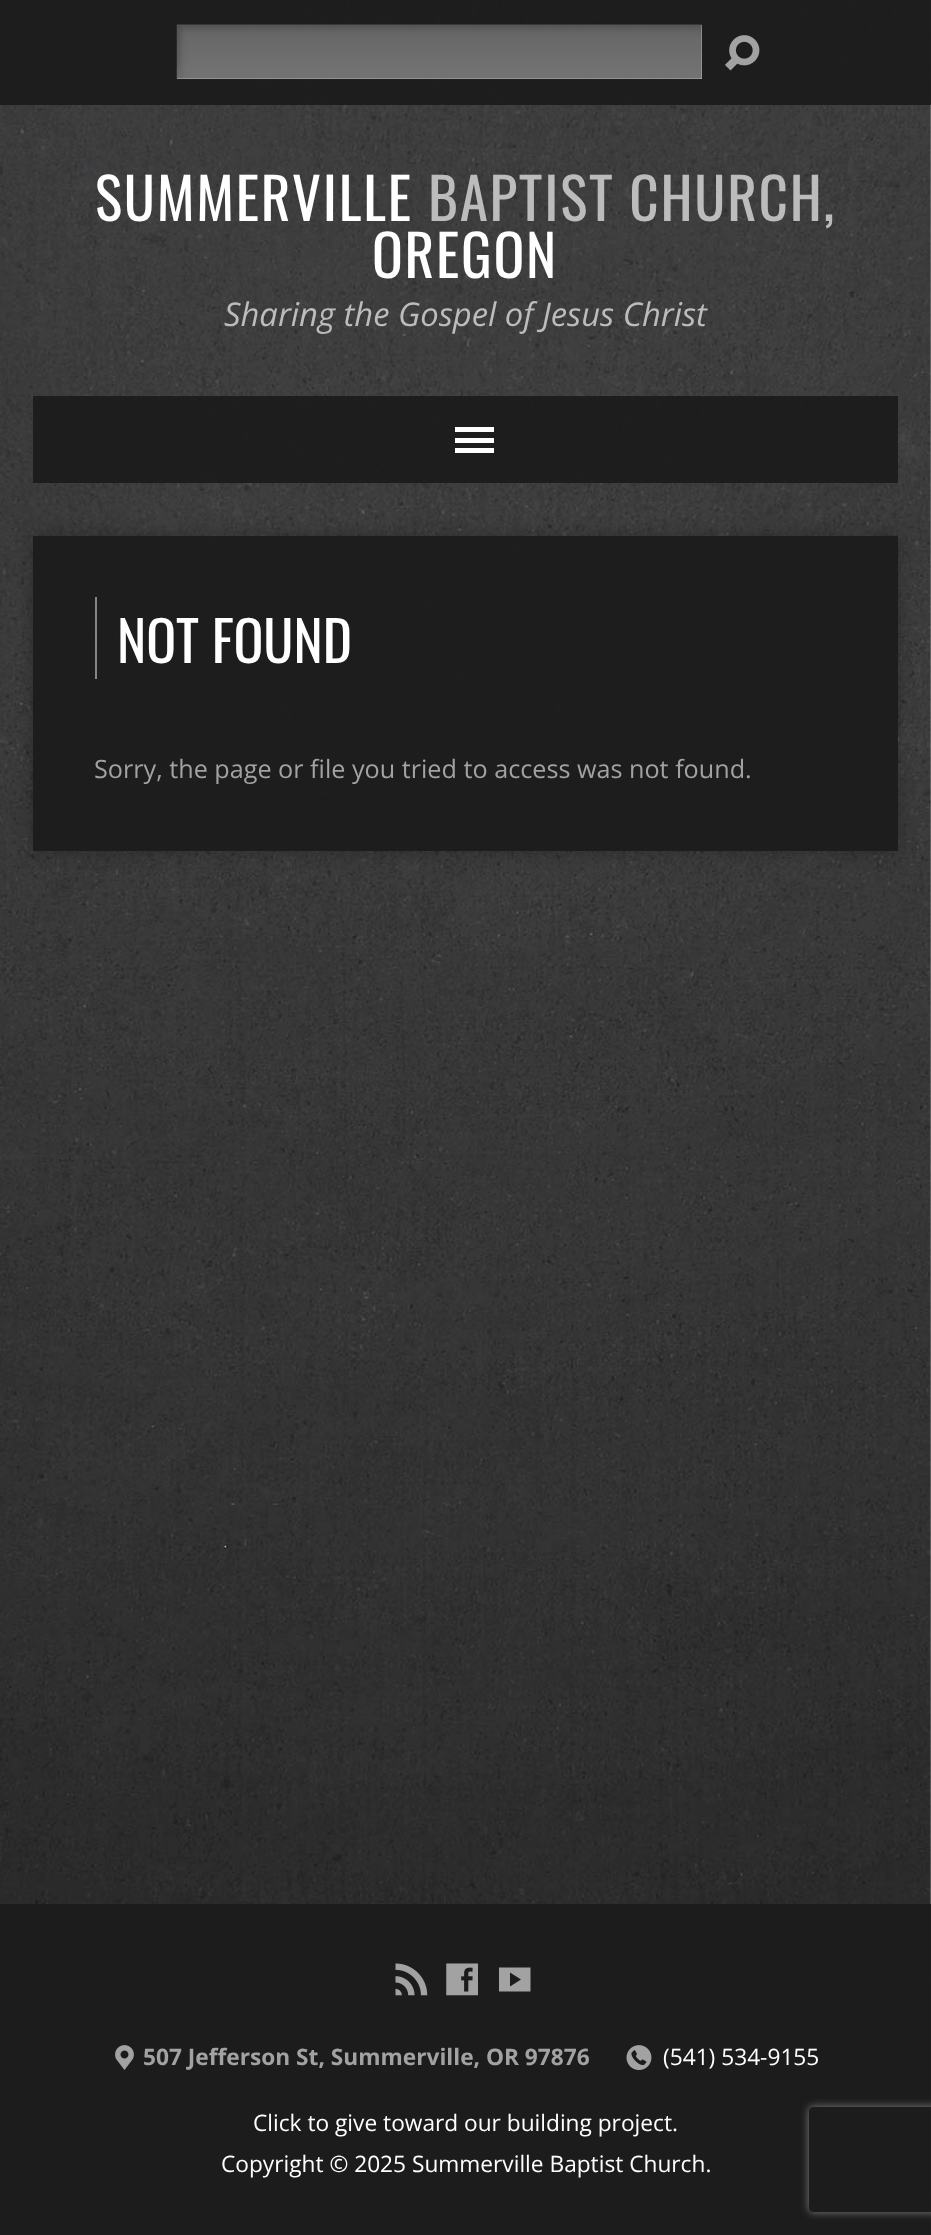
<?xml version="1.0" encoding="UTF-8"?>
<svg xmlns="http://www.w3.org/2000/svg" xmlns:xlink="http://www.w3.org/1999/xlink" width="931" height="2235">
  <defs>
    <clipPath id="clip1"><path d="M 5 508 h 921 v 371 h -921 z m 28 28 h 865 v 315 h -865 z" clip-rule="evenodd" /></clipPath>
    <clipPath id="clip2"><path d="M 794 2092 h 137 v 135 h -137 z m 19 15 h 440 c 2 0 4 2 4 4 v 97 c 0 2 -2 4 -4 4 h -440 c -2 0 -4 -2 -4 -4 v -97 c 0 -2 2 -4 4 -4 z" clip-rule="evenodd" /></clipPath>
  </defs>
  <rect width="100%" height="100%" fill="#ffffff" />
  <image x="0" y="0" width="931" height="2235" xlink:href="image1.png" />
  <rect width="931" height="105" fill="#1c1c1c" fill-opacity="0.94" />
  <rect x="177" y="25" width="525" height="54" fill="#ffffff" />
  <image x="176" y="24" width="526" height="55" xlink:href="image2.png" />
  <image x="725" y="35" width="35" height="36" xlink:href="image3.png" />
  <rect x="33" y="396" width="865" height="87" fill="#1c1c1c" fill-opacity="0.94" />
  <rect x="455" y="427" width="39" height="5" fill="#ffffff" />
  <rect x="455" y="438" width="39" height="5" fill="#ffffff" />
  <rect x="455" y="448" width="39" height="5" fill="#ffffff" />
  <g clip-path="url(#clip1)">
    <rect x="33" y="536" width="865" height="315" fill="#000000" fill-opacity="0.25" filter="blur(9px)" />
  </g>
  <rect x="33" y="536" width="865" height="315" fill="#1c1c1c" fill-opacity="0.94" />
  <rect x="95" y="597" width="2" height="82" fill="#868686" />
  <rect y="1904" width="931" height="331" fill="#1c1c1c" fill-opacity="0.94" />
  <image x="395" y="1963" width="33" height="33" xlink:href="image4.png" />
  <image x="446" y="1963" width="32" height="33" xlink:href="image5.png" />
  <path d="M 530.5 1991.5 h -31.5 v -24 h 31.5 z m -20.5 -5 l 11 -7 l -11 -7 z" fill="#a2a2a2" />
  <image x="115" y="2045" width="19" height="25" xlink:href="image6.png" />
  <image x="626" y="2045" width="26" height="25" xlink:href="image7.png" />
  <g clip-path="url(#clip2)">
    <rect x="809" y="2107" width="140" height="105" rx="4" fill="#808080" filter="blur(4.5px)" />
  </g>
  <text x="95" y="221" style="font-family: Oswald; font-size: 57.25px; letter-spacing: 1.75px; fill: #ffffff">SUMMERVILLE</text>
  <text x="428" y="221" style="font-family: Oswald; font-size: 57.25px; letter-spacing: 1.75px; fill: #bcbcbc">BAPTIST CHURCH,</text>
  <text x="372" y="278" style="font-family: Oswald; font-size: 57.25px; letter-spacing: 1.75px; fill: #ffffff">OREGON</text>
  <text x="224" y="326" style="font-family: Open Sans; font-size: 32.75px; font-style: italic; fill: #bcbcbc">Sharing the Gospel of Jesus Christ</text>
  <text x="117" y="663" style="font-family: Oswald; font-size: 55.5px; fill: #ffffff">NOT FOUND</text>
  <text x="94" y="778" style="font-family: Open Sans; font-size: 25.2px; fill: #a2a2a2">Sorry, the page or file you tried to access was not found.</text>
  <text x="143" y="2065" style="font-family: Open Sans; font-size: 22.7px; font-weight: bold; fill: #a2a2a2">507 Jefferson St, Summerville, OR 97876</text>
  <text x="663" y="2065" style="font-family: Open Sans; font-size: 22.7px; fill: #ffffff">(541) 534-9155</text>
  <text x="253" y="2131" style="font-family: Open Sans; font-size: 22.7px; fill: #ffffff">Click to give toward our building project.</text>
  <text x="221" y="2172" style="font-family: Open Sans; font-size: 22.7px; fill: #ffffff">Copyright © 2025 Summerville Baptist Church.</text>
</svg>
